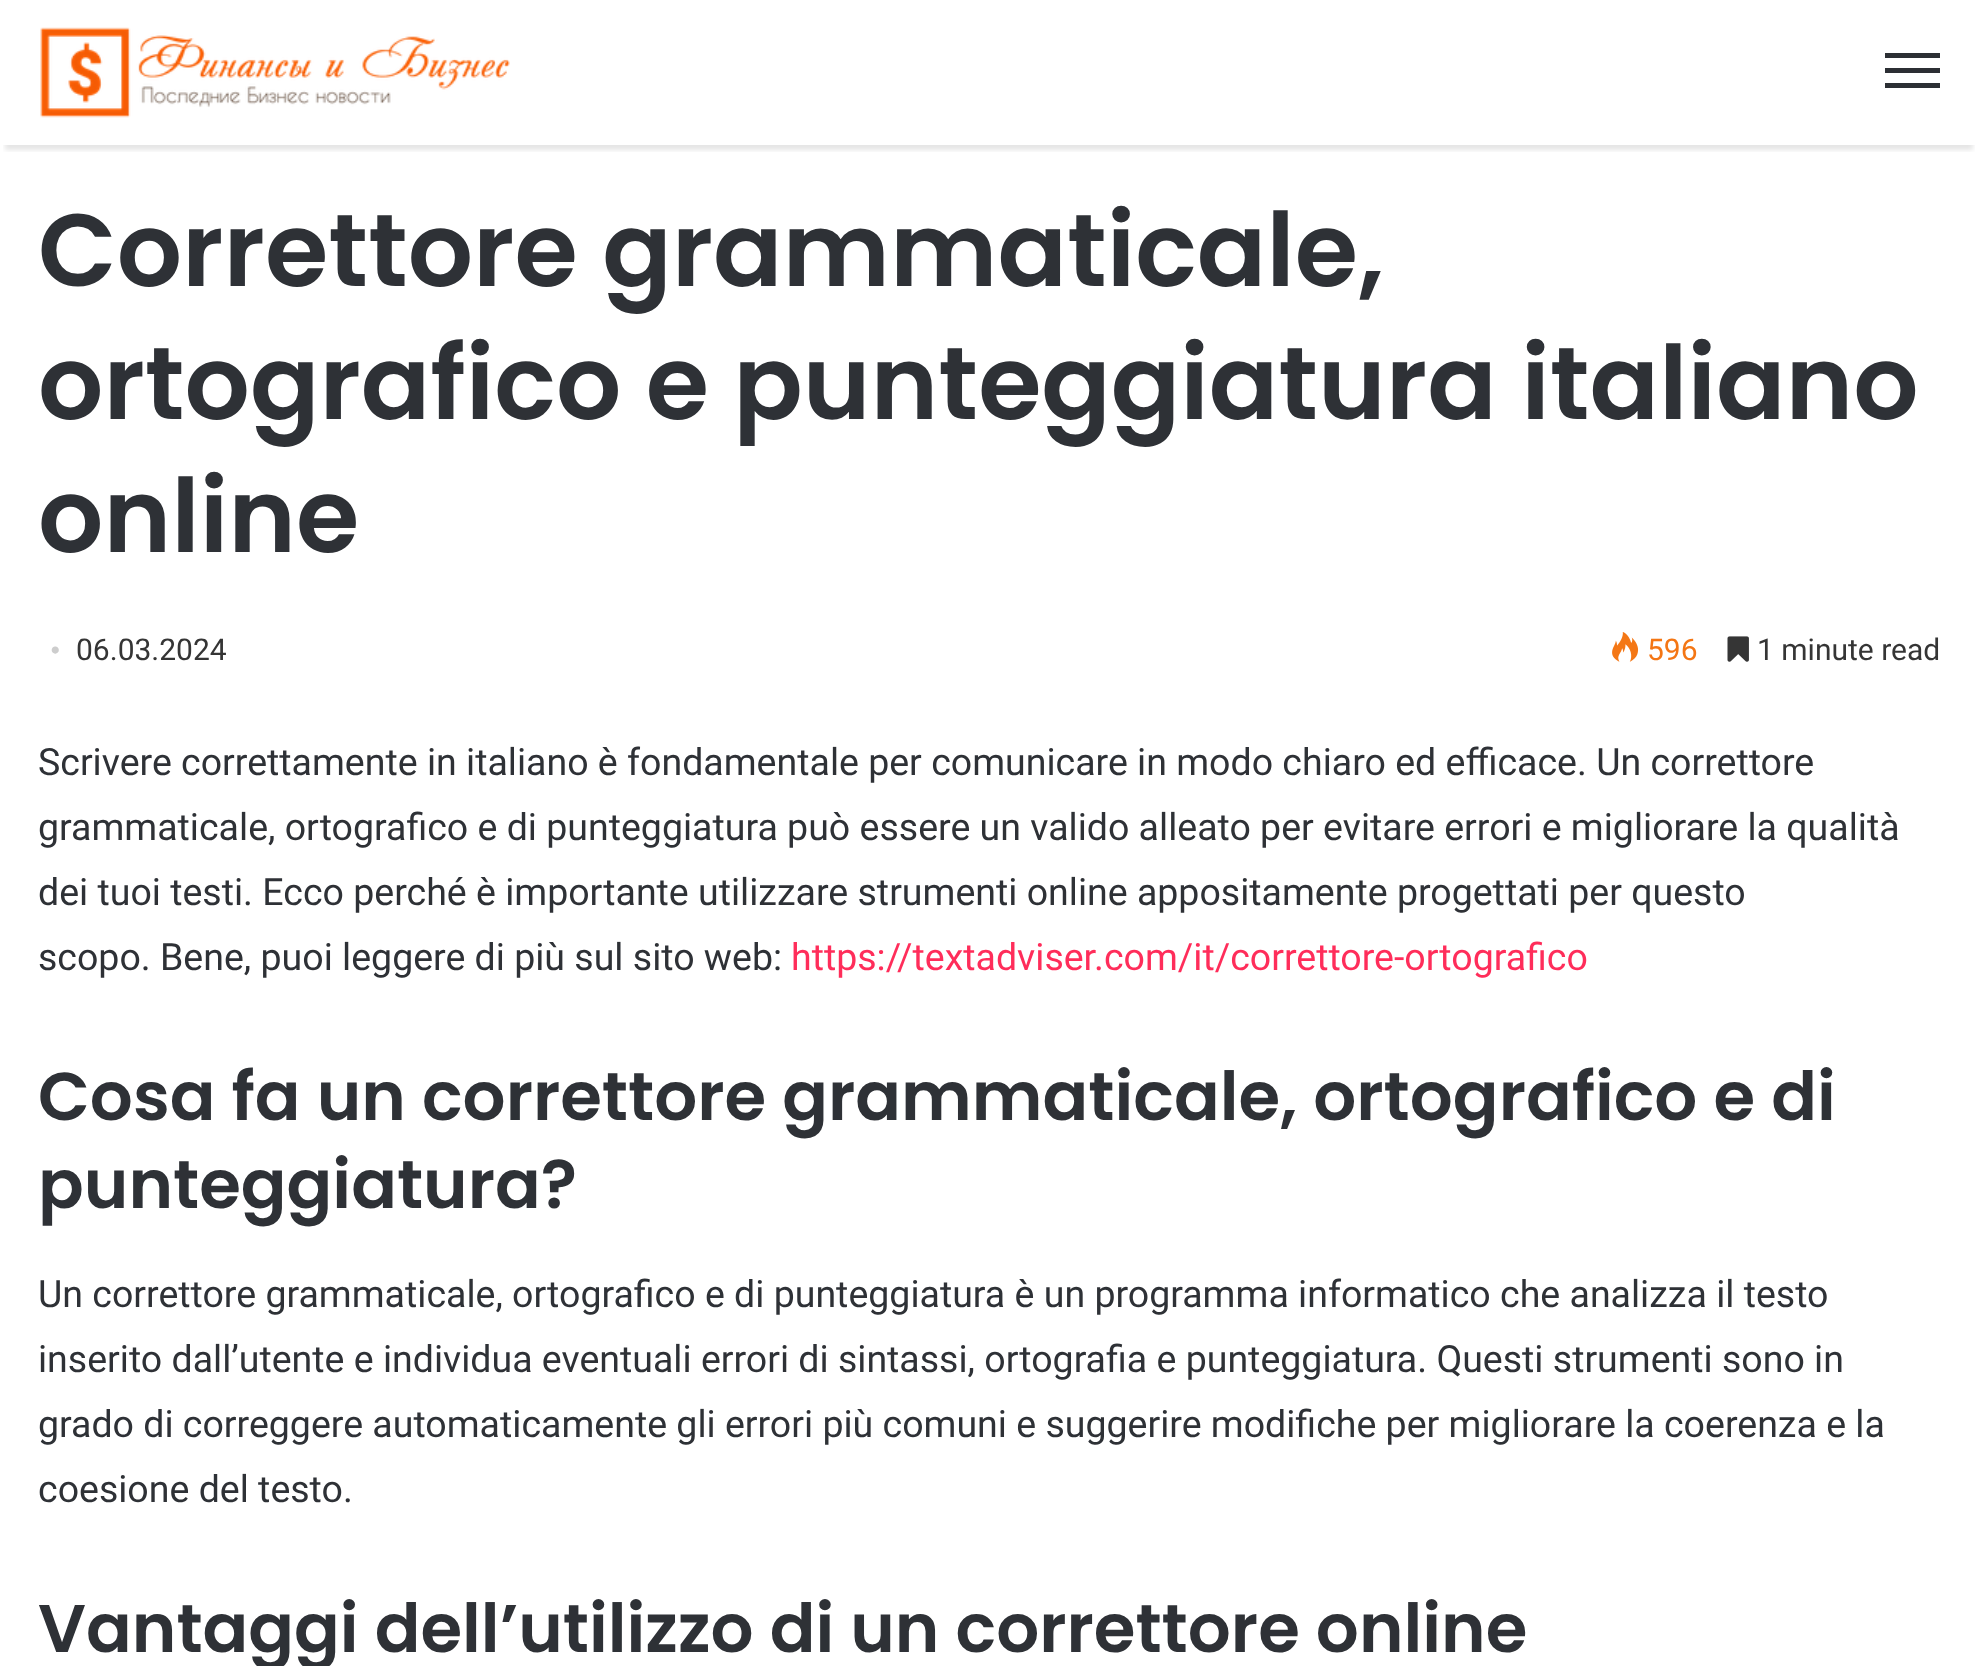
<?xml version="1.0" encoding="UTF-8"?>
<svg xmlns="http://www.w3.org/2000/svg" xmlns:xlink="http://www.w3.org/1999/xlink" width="1977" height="1666">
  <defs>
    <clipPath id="clip1"><rect x="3" y="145" width="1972" height="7" /></clipPath>
  </defs>
  <rect width="100%" height="100%" fill="#ffffff" />
  <g clip-path="url(#clip1)">
    <rect x="5" y="15" width="1968" height="135" fill="#000000" fill-opacity="0.1" filter="blur(2.5px)" />
  </g>
  <image x="40" y="27" width="470" height="91" xlink:href="image1.png" />
  <rect x="1885" y="68" width="55" height="5" fill="#2c2f34" />
  <rect x="1885" y="53" width="55" height="5" fill="#2c2f34" />
  <rect x="1885" y="83" width="55" height="5" fill="#2c2f34" />
  <image x="1612" y="632" width="27" height="30" xlink:href="image2.png" />
  <image x="1727" y="636" width="22" height="26" xlink:href="image3.png" />
  <text x="38" y="286" style="font-family: Poppins; font-size: 102.5px; font-weight: 600; fill: #2e3136">Correttore grammaticale,</text>
  <text x="38" y="419" style="font-family: Poppins; font-size: 102.5px; font-weight: 600; fill: #2e3136">ortografico e punteggiatura italiano</text>
  <text x="38" y="552" style="font-family: Poppins; font-size: 102.5px; font-weight: 600; fill: #2e3136">online</text>
  <text x="50" y="660" style="font-family: Liberation Serif; font-size: 30px; fill: #cdcdcd">•</text>
  <text x="76" y="660" style="font-family: Roboto; font-size: 30px; fill: #353535">06.03.2024</text>
  <text x="1647" y="660" style="font-family: Roboto; font-size: 30px; fill: #f47614">596</text>
  <text x="1757" y="660" style="font-family: Roboto; font-size: 30px; fill: #353535">1 minute read</text>
  <text x="38" y="775" style="font-family: Roboto; font-size: 37.5px; fill: #2e3136">Scrivere correttamente in italiano è fondamentale per comunicare in modo chiaro ed efficace. Un correttore</text>
  <text x="38" y="840" style="font-family: Roboto; font-size: 37.5px; fill: #2e3136">grammaticale, ortografico e di punteggiatura può essere un valido alleato per evitare errori e migliorare la qualità</text>
  <text x="38" y="905" style="font-family: Roboto; font-size: 37.5px; fill: #2e3136">dei tuoi testi. Ecco perché è importante utilizzare strumenti online appositamente progettati per questo</text>
  <text x="38" y="970" style="font-family: Roboto; font-size: 37.5px; fill: #2e3136">scopo. Bene, puoi leggere di più sul sito web:</text>
  <text x="791" y="970" style="font-family: Roboto; font-size: 37.5px; fill: #ff2d5a">https://textadviser.com/it/correttore-ortografico</text>
  <text x="38" y="1120" style="font-family: Poppins; font-size: 67.5px; font-weight: 600; fill: #2e3136">Cosa fa un correttore grammaticale, ortografico e di</text>
  <text x="38" y="1208" style="font-family: Poppins; font-size: 67.5px; font-weight: 600; fill: #2e3136">punteggiatura?</text>
  <text x="38" y="1307" style="font-family: Roboto; font-size: 37.5px; fill: #2e3136">Un correttore grammaticale, ortografico e di punteggiatura è un programma informatico che analizza il testo</text>
  <text x="38" y="1372" style="font-family: Roboto; font-size: 37.5px; fill: #2e3136">inserito dall’utente e individua eventuali errori di sintassi, ortografia e punteggiatura. Questi strumenti sono in</text>
  <text x="38" y="1437" style="font-family: Roboto; font-size: 37.5px; fill: #2e3136">grado di correggere automaticamente gli errori più comuni e suggerire modifiche per migliorare la coerenza e la</text>
  <text x="38" y="1502" style="font-family: Roboto; font-size: 37.5px; fill: #2e3136">coesione del testo.</text>
  <text x="38" y="1652" style="font-family: Poppins; font-size: 67.5px; font-weight: 600; fill: #2e3136">Vantaggi dell’utilizzo di un correttore online</text>
</svg>
